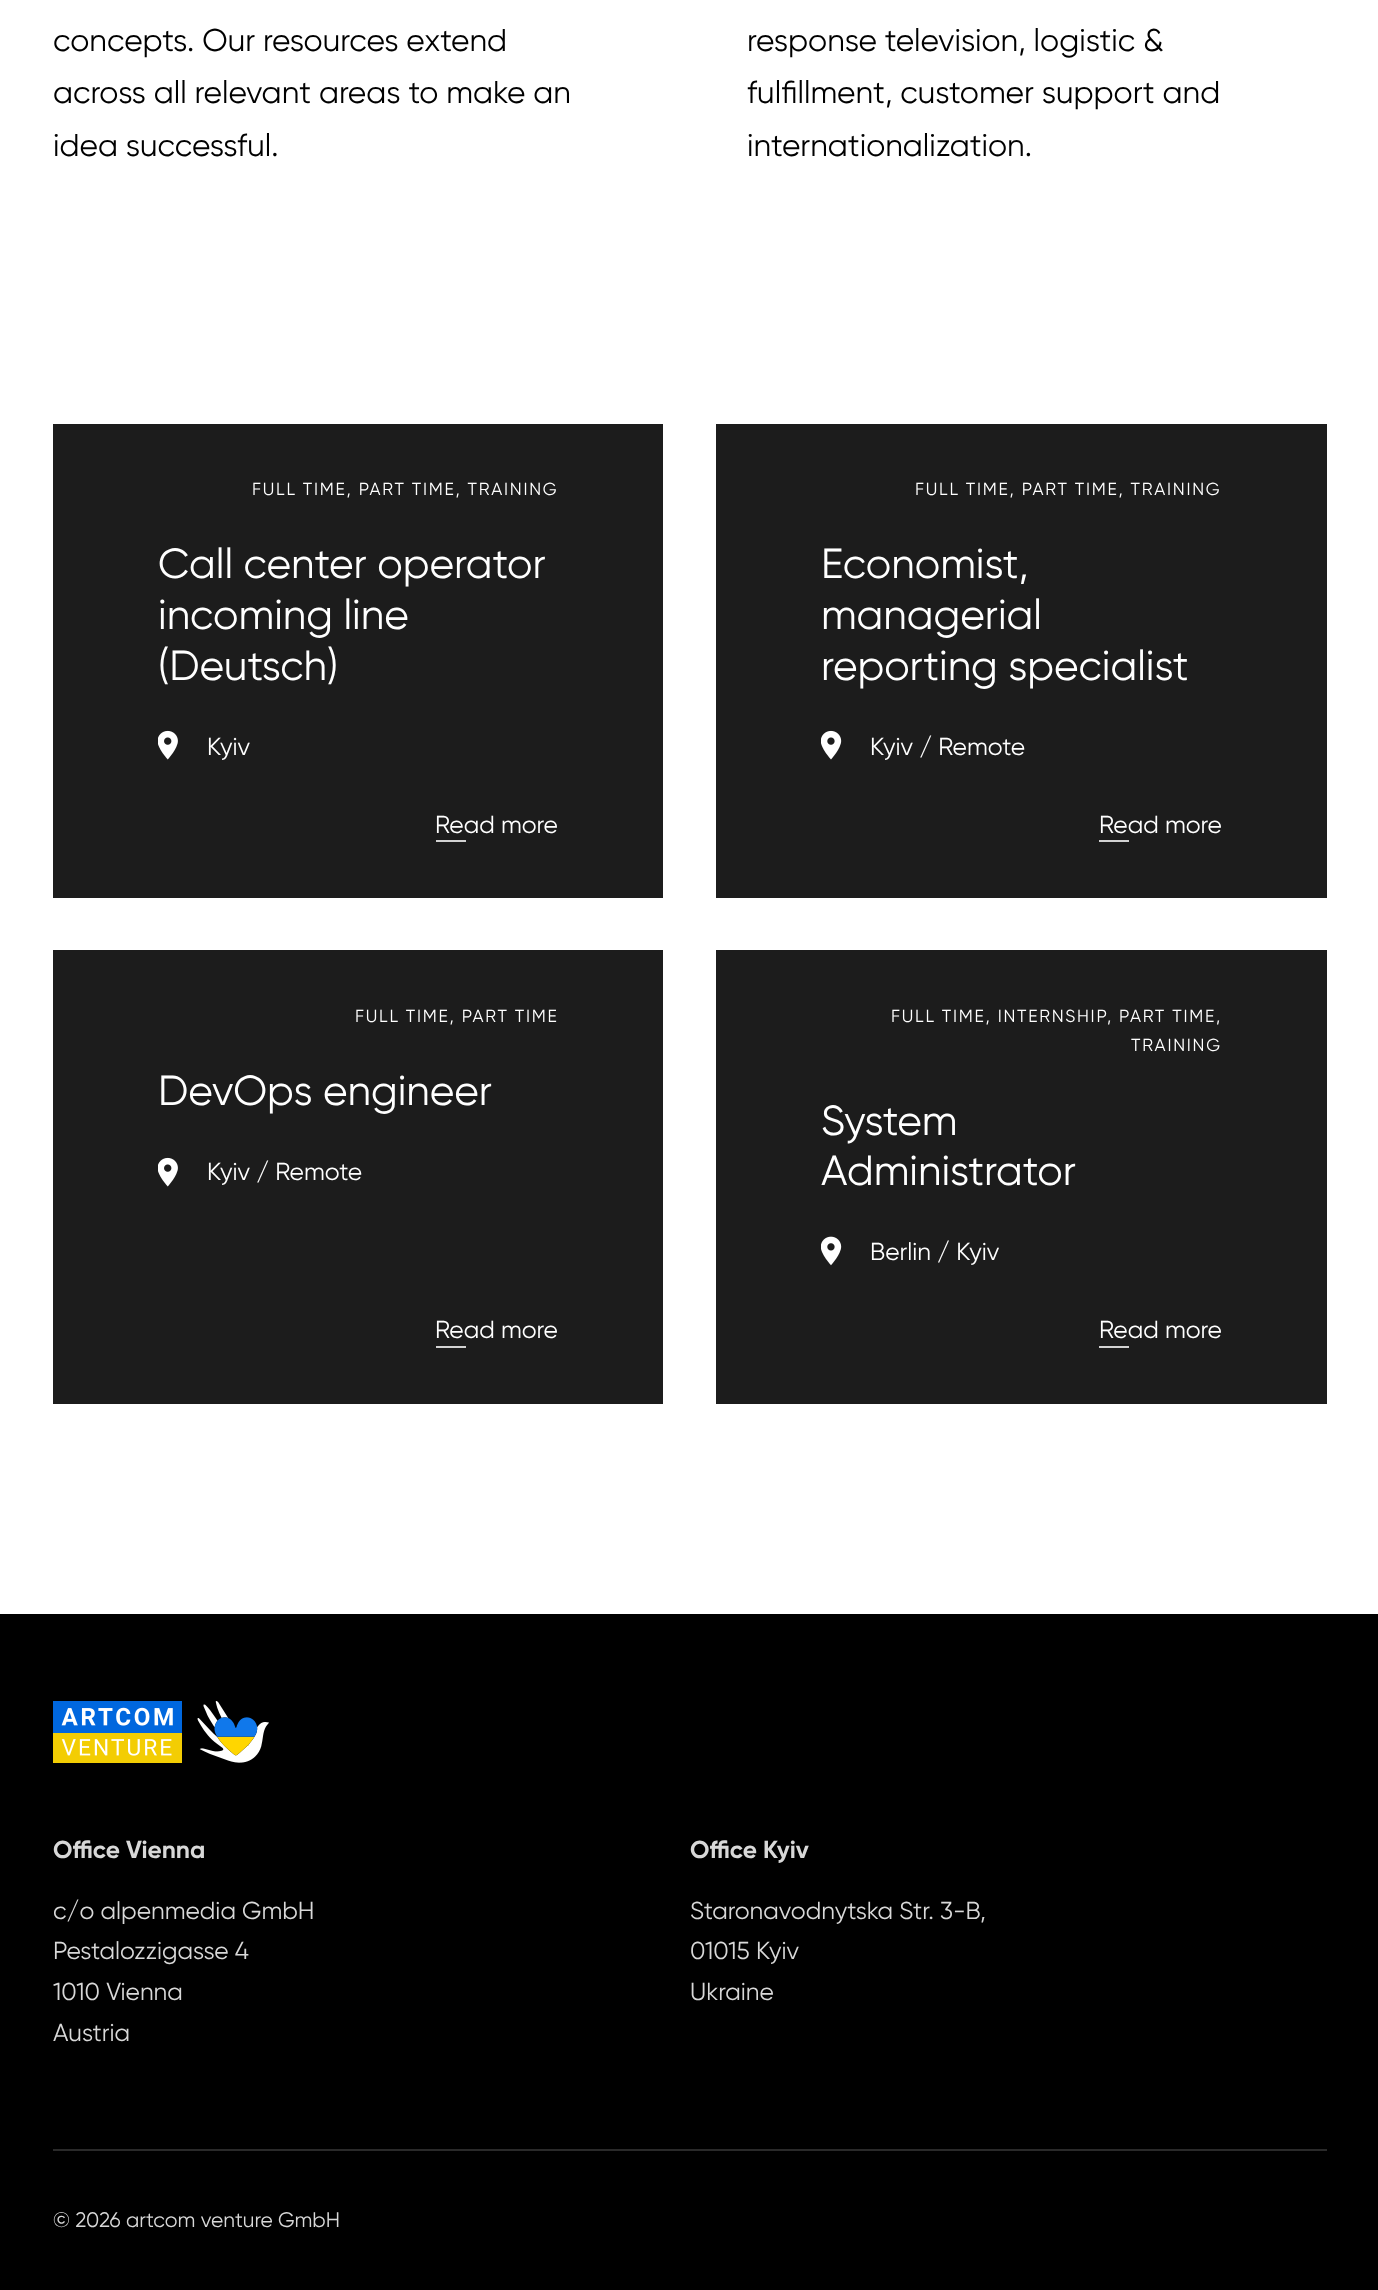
<?xml version="1.0" encoding="UTF-8"?>
<svg xmlns="http://www.w3.org/2000/svg" xmlns:xlink="http://www.w3.org/1999/xlink" width="1378" height="2290">
  <rect width="100%" height="100%" fill="#ffffff" />
  <rect x="53" y="424" width="610" height="474" fill="#1c1c1c" />
  <image x="158" y="730" width="20" height="30" xlink:href="image1.png" />
  <rect x="436" y="840" width="30" height="2" fill="#d2d2d2" />
  <rect x="716" y="424" width="611" height="474" fill="#1c1c1c" />
  <image x="821" y="730" width="21" height="30" xlink:href="image2.png" />
  <rect x="1099" y="840" width="30" height="2" fill="#d2d2d2" />
  <rect x="53" y="950" width="610" height="454" fill="#1c1c1c" />
  <image x="158" y="1157" width="20" height="30" xlink:href="image1.png" />
  <rect x="436" y="1346" width="30" height="2" fill="#d2d2d2" />
  <rect x="716" y="950" width="611" height="454" fill="#1c1c1c" />
  <image x="821" y="1236" width="21" height="30" xlink:href="image3.png" />
  <rect x="1099" y="1346" width="30" height="2" fill="#d2d2d2" />
  <rect y="1614" width="1378" height="676" fill="#000000" />
  <image x="53" y="1701" width="216" height="62" xlink:href="image4.png" />
  <rect x="53" y="2149" width="1274" height="2" fill="#2a2a2a" />
  <text x="53" y="51" style="font-family: Gilroy; font-size: 31.5px; fill: #000000">concepts. Our resources extend</text>
  <text x="53" y="103" style="font-family: Gilroy; font-size: 31.5px; fill: #000000">across all relevant areas to make an</text>
  <text x="53" y="156" style="font-family: Gilroy; font-size: 31.5px; fill: #000000">idea successful.</text>
  <text x="747" y="51" style="font-family: Gilroy; font-size: 31.5px; fill: #000000">response television, logistic &amp;</text>
  <text x="747" y="103" style="font-family: Gilroy; font-size: 31.5px; fill: #000000">fulfillment, customer support and</text>
  <text x="747" y="156" style="font-family: Gilroy; font-size: 31.5px; fill: #000000">internationalization.</text>
  <text x="252" y="495" style="font-family: Gilroy; font-size: 17.5px; letter-spacing: 1.75px; fill: #ffffff">FULL TIME, PART TIME, TRAINING</text>
  <text x="158" y="578" style="font-family: Gilroy; font-size: 42px; fill: #ffffff">Call center operator</text>
  <text x="158" y="629" style="font-family: Gilroy; font-size: 42px; fill: #ffffff">incoming line</text>
  <text x="158" y="680" style="font-family: Gilroy; font-size: 42px; fill: #ffffff">(Deutsch)</text>
  <text x="207" y="755" style="font-family: Gilroy; font-size: 24.5px; fill: #ffffff">Kyiv</text>
  <text x="435" y="833" style="font-family: Gilroy; font-size: 24.5px; fill: #ffffff">Read more</text>
  <text x="915" y="495" style="font-family: Gilroy; font-size: 17.5px; letter-spacing: 1.75px; fill: #ffffff">FULL TIME, PART TIME, TRAINING</text>
  <text x="821" y="578" style="font-family: Gilroy; font-size: 42px; fill: #ffffff">Economist,</text>
  <text x="821" y="629" style="font-family: Gilroy; font-size: 42px; fill: #ffffff">managerial</text>
  <text x="821" y="680" style="font-family: Gilroy; font-size: 42px; fill: #ffffff">reporting specialist</text>
  <text x="870" y="755" style="font-family: Gilroy; font-size: 24.5px; fill: #ffffff">Kyiv / Remote</text>
  <text x="1099" y="833" style="font-family: Gilroy; font-size: 24.5px; fill: #ffffff">Read more</text>
  <text x="355" y="1022" style="font-family: Gilroy; font-size: 17.5px; letter-spacing: 1.75px; fill: #ffffff">FULL TIME, PART TIME</text>
  <text x="158" y="1105" style="font-family: Gilroy; font-size: 42px; fill: #ffffff">DevOps engineer</text>
  <text x="207" y="1180" style="font-family: Gilroy; font-size: 24.5px; fill: #ffffff">Kyiv / Remote</text>
  <text x="435" y="1338" style="font-family: Gilroy; font-size: 24.5px; fill: #ffffff">Read more</text>
  <text x="891" y="1022" style="font-family: Gilroy; font-size: 17.5px; letter-spacing: 1.75px; fill: #ffffff">FULL TIME, INTERNSHIP</text>
  <text x="1107" y="1022" style="font-family: Gilroy; font-size: 17.5px; letter-spacing: 1.75px; fill: #ffffff">, PART TIME,</text>
  <text x="1131" y="1051" style="font-family: Gilroy; font-size: 17.5px; letter-spacing: 1.75px; fill: #ffffff">TRAINING</text>
  <text x="821" y="1135" style="font-family: Gilroy; font-size: 42px; fill: #ffffff">System</text>
  <text x="821" y="1185" style="font-family: Gilroy; font-size: 42px; fill: #ffffff">Administrator</text>
  <text x="870" y="1260" style="font-family: Gilroy; font-size: 24.5px; fill: #ffffff">Berlin / Kyiv</text>
  <text x="1099" y="1338" style="font-family: Gilroy; font-size: 24.5px; fill: #ffffff">Read more</text>
  <text x="53" y="1858" style="font-family: Gilroy; font-size: 24.5px; font-weight: bold; fill: #d8d8d8">Office Vienna</text>
  <text x="53" y="1919" style="font-family: Gilroy; font-size: 24.5px; fill: #d8d8d8">c/o alpenmedia GmbH</text>
  <text x="53" y="1959" style="font-family: Gilroy; font-size: 24.5px; fill: #d8d8d8">Pestalozzigasse 4</text>
  <text x="53" y="2000" style="font-family: Gilroy; font-size: 24.5px; fill: #d8d8d8">1010 Vienna</text>
  <text x="53" y="2041" style="font-family: Gilroy; font-size: 24.5px; fill: #d8d8d8">Austria</text>
  <text x="690" y="1858" style="font-family: Gilroy; font-size: 24.5px; font-weight: bold; fill: #d8d8d8">Office Kyiv</text>
  <text x="690" y="1919" style="font-family: Gilroy; font-size: 24.5px; fill: #d8d8d8">Staronavodnytska Str. 3-B,</text>
  <text x="690" y="1959" style="font-family: Gilroy; font-size: 24.5px; fill: #d8d8d8">01015 Kyiv</text>
  <text x="690" y="2000" style="font-family: Gilroy; font-size: 24.5px; fill: #d8d8d8">Ukraine</text>
  <text x="53" y="2227" style="font-family: Gilroy; font-size: 21px; fill: #d8d8d8">© 2026 artcom venture GmbH</text>
</svg>
